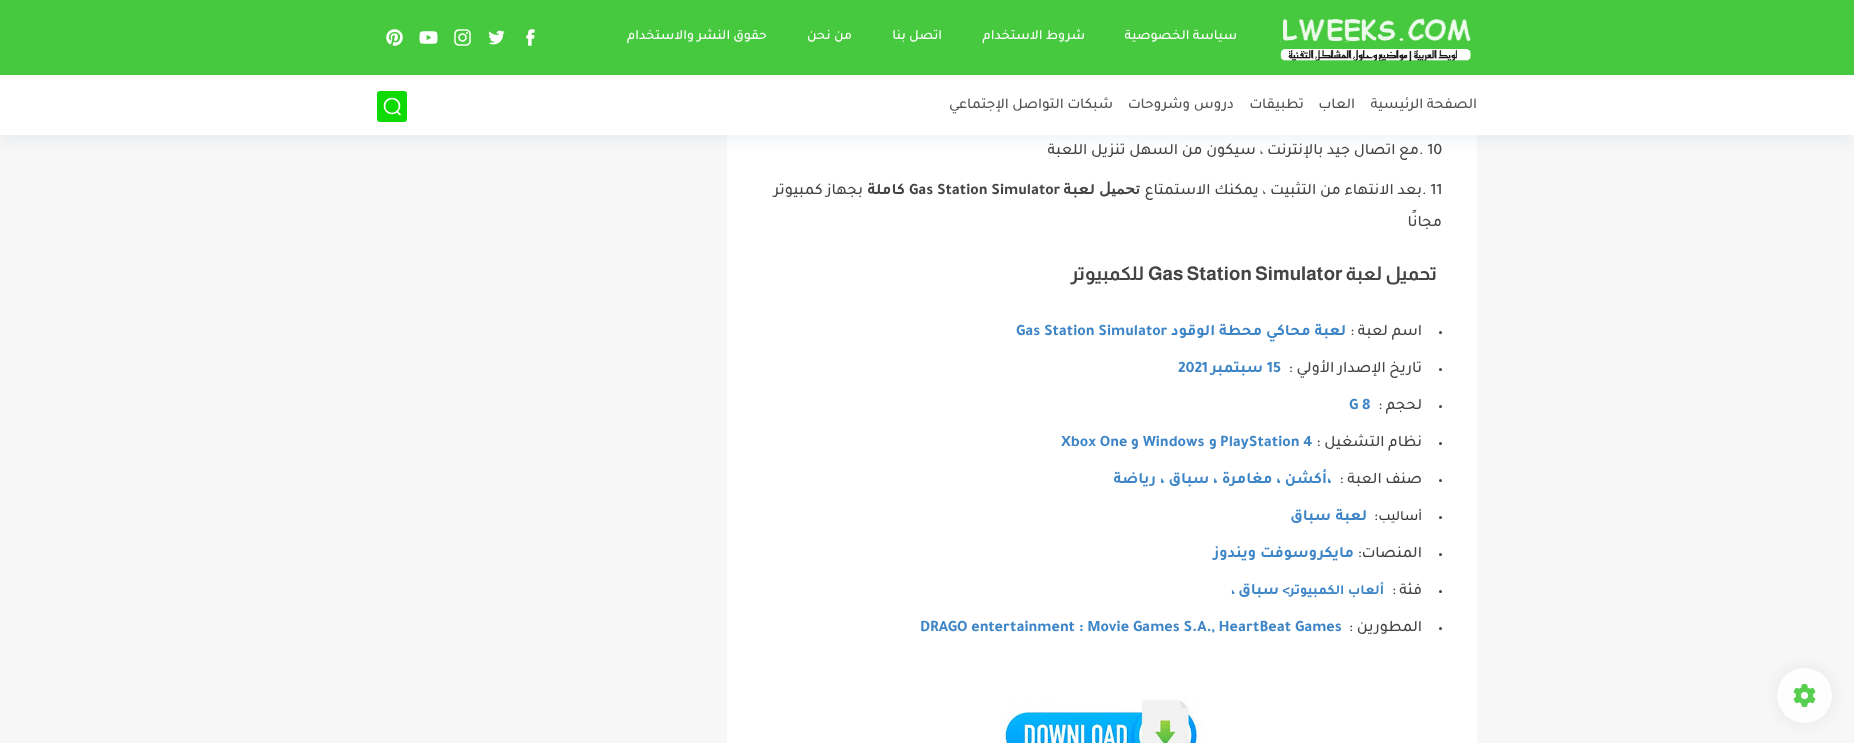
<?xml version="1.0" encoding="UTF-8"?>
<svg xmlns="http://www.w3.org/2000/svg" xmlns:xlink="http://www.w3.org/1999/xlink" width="1854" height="743">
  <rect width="100%" height="100%" fill="#f7f7f7" />
  <rect x="727" y="135" width="750" height="608" fill="#ffffff" />
  <rect y="6" width="1854" height="135" fill="#09204c" fill-opacity="0.05" filter="blur(7px)" />
  <rect y="75" width="1854" height="60" fill="#ffffff" />
  <rect width="1854" height="75" fill="#46c93e" />
  <image x="1279" y="18" width="192" height="43" xlink:href="image1.png" />
  <image x="526" y="29" width="9" height="17" xlink:href="image2.png" />
  <image x="488" y="30" width="17" height="15" xlink:href="image3.png" />
  <image x="454" y="29" width="17" height="17" xlink:href="image4.png" />
  <image x="419" y="31" width="19" height="13" xlink:href="image5.png" />
  <image x="386" y="29" width="17" height="17" xlink:href="image6.png" />
  <rect x="377" y="91" width="30" height="31" rx="3" fill="#10da03" />
  <circle cx="392" cy="106" r="7.5" fill="none" stroke="#ffffff" stroke-width="1.7" />
  <path d="M 397 111.5 l 3 3" fill="none" stroke="#ffffff" stroke-width="1.7" stroke-linecap="round" stroke-linejoin="round" />
  <circle cx="1440.5" cy="332.5" r="1.5" fill="#444444" />
  <circle cx="1440.5" cy="369.5" r="1.5" fill="#444444" />
  <circle cx="1440.5" cy="406.5" r="1.5" fill="#444444" />
  <circle cx="1440.5" cy="443.5" r="1.5" fill="#444444" />
  <circle cx="1440.5" cy="480.5" r="1.5" fill="#444444" />
  <circle cx="1440.5" cy="517.5" r="1.5" fill="#444444" />
  <circle cx="1440.5" cy="554.5" r="1.5" fill="#444444" />
  <circle cx="1440.5" cy="591.5" r="1.5" fill="#444444" />
  <circle cx="1440.5" cy="628.5" r="1.5" fill="#444444" />
  <image x="1003" y="696" width="200" height="47" xlink:href="image7.png" />
  <rect x="1777" y="668" width="55" height="55" rx="27.5" fill="#191919" fill-opacity="0.08" filter="blur(7.5px)" />
  <circle cx="1804.5" cy="695.5" r="27.5" fill="#fefefe" />
  <image x="1793" y="684" width="23" height="23" xlink:href="image8.png" />
  <text x="1237" y="39" style="font-family: Tajawal; font-size: 14px; font-weight: 500; direction: rtl; fill: #ffffff">سياسة الخصوصية</text>
  <text x="1085" y="39" style="font-family: Tajawal; font-size: 14px; font-weight: 500; direction: rtl; fill: #ffffff">شروط الاستخدام</text>
  <text x="942" y="39" style="font-family: Tajawal; font-size: 14px; font-weight: 500; direction: rtl; fill: #ffffff">اتصل بنا</text>
  <text x="852" y="39" style="font-family: Tajawal; font-size: 14px; font-weight: 500; direction: rtl; fill: #ffffff">من نحن</text>
  <text x="767" y="39" style="font-family: Tajawal; font-size: 14px; font-weight: 500; direction: rtl; fill: #ffffff">حقوق النشر والاستخدام</text>
  <text x="1477" y="108" style="font-family: Tajawal; font-size: 15px; font-weight: 500; direction: rtl; fill: #515151">الصفحة الرئيسية</text>
  <text x="1355" y="108" style="font-family: Tajawal; font-size: 15px; font-weight: 500; direction: rtl; fill: #515151">العاب</text>
  <text x="1304" y="108" style="font-family: Tajawal; font-size: 15px; font-weight: 500; direction: rtl; fill: #515151">تطبيقات</text>
  <text x="1234" y="108" style="font-family: Tajawal; font-size: 15px; font-weight: 500; direction: rtl; fill: #515151">دروس وشروحات</text>
  <text x="1113" y="108" style="font-family: Tajawal; font-size: 15px; font-weight: 500; direction: rtl; fill: #515151">شبكات التواصل الإجتماعي</text>
  <text x="1419" y="154" style="font-family: Tajawal; font-size: 16px; font-weight: 500; fill: #444444">. 10</text>
  <text x="1419" y="154" style="font-family: Tajawal; font-size: 16px; font-weight: 500; direction: rtl; fill: #444444">مع اتصال جيد بالإنترنت ، سيكون من السهل تنزيل اللعبة</text>
  <text x="1422" y="194" style="font-family: Tajawal; font-size: 16px; font-weight: 500; fill: #444444">. 11</text>
  <text x="1422" y="194" style="font-family: Tajawal; font-size: 16px; font-weight: 500; direction: rtl; fill: #444444">بعد الانتهاء من التثبيت ، يمكنك الاستمتاع</text>
  <text x="1140" y="194" style="font-family: DejaVu Sans; font-size: 16px; font-weight: bold; direction: rtl; fill: #444444">تحميل</text>
  <text x="1095" y="194" style="font-family: Tajawal; font-size: 16px; font-weight: bold; direction: rtl; fill: #444444">لعبة</text>
  <text x="909" y="194" style="font-family: Tajawal; font-size: 16px; font-weight: bold; fill: #444444">Gas Station Simulator</text>
  <text x="905" y="194" style="font-family: Tajawal; font-size: 16px; font-weight: bold; direction: rtl; fill: #444444">كاملة</text>
  <text x="863" y="194" style="font-family: Tajawal; font-size: 16px; font-weight: 500; direction: rtl; fill: #444444">بجهاز كمبيوتر</text>
  <text x="1442" y="226" style="font-family: Tajawal; font-size: 16px; font-weight: 500; direction: rtl; fill: #444444">مجانًا</text>
  <text x="1437" y="280" style="font-family: Almarai; font-size: 19px; font-weight: bold; direction: rtl; fill: #444444">تحميل لعبة</text>
  <text x="1148" y="280" style="font-family: Almarai; font-size: 19px; font-weight: bold; fill: #444444">Gas Station Simulator</text>
  <text x="1144" y="280" style="font-family: Almarai; font-size: 19px; font-weight: bold; direction: rtl; fill: #444444">للكمبيوتر</text>
  <text x="1422" y="335" style="font-family: Tajawal; font-size: 16px; font-weight: 500; direction: rtl; fill: #444444">اسم لعبة :</text>
  <text x="1346" y="335" style="font-family: Tajawal; font-size: 16px; font-weight: bold; direction: rtl; fill: #3d85c6">لعبة محاكي محطة الوقود</text>
  <text x="1016" y="335" style="font-family: Tajawal; font-size: 16px; font-weight: bold; fill: #3d85c6">Gas Station Simulator</text>
  <text x="1422" y="372" style="font-family: Tajawal; font-size: 16px; font-weight: 500; direction: rtl; fill: #444444">تاريخ الإصدار الأولي :</text>
  <text x="1267" y="372" style="font-family: Tajawal; font-size: 16px; font-weight: bold; fill: #3d85c6">15</text>
  <text x="1263" y="372" style="font-family: Tajawal; font-size: 16px; font-weight: bold; direction: rtl; fill: #3d85c6">سبتمبر</text>
  <text x="1178" y="372" style="font-family: Tajawal; font-size: 16px; font-weight: bold; fill: #3d85c6">2021</text>
  <text x="1422" y="409" style="font-family: Tajawal; font-size: 16px; font-weight: 500; direction: rtl; fill: #444444">لحجم :</text>
  <text x="1362" y="409" style="font-family: Tajawal; font-size: 16px; font-weight: bold; fill: #3d85c6">8</text>
  <text x="1349" y="409" style="font-family: Tajawal; font-size: 16px; font-weight: bold; fill: #3d85c6">G</text>
  <text x="1422" y="446" style="font-family: Tajawal; font-size: 16px; font-weight: 500; direction: rtl; fill: #444444">نظام التشغيل :</text>
  <text x="1220" y="446" style="font-family: Tajawal; font-size: 16px; font-weight: bold; fill: #3d85c6">PlayStation 4</text>
  <text x="1217" y="446" style="font-family: Tajawal; font-size: 16px; font-weight: bold; direction: rtl; fill: #3d85c6">و</text>
  <text x="1143" y="446" style="font-family: Tajawal; font-size: 16px; font-weight: bold; fill: #3d85c6">Windows</text>
  <text x="1139" y="446" style="font-family: Tajawal; font-size: 16px; font-weight: bold; direction: rtl; fill: #3d85c6">و</text>
  <text x="1061" y="446" style="font-family: Tajawal; font-size: 16px; font-weight: bold; fill: #3d85c6">Xbox One</text>
  <text x="1422" y="483" style="font-family: Tajawal; font-size: 16px; font-weight: 500; direction: rtl; fill: #444444">صنف العبة :</text>
  <text x="1327" y="483" style="font-family: Tajawal; font-size: 16px; font-weight: bold; fill: #3d85c6">،</text>
  <text x="1327" y="483" style="font-family: Tajawal; font-size: 16px; font-weight: bold; direction: rtl; fill: #3d85c6">أكشن ، مغامرة ، سباق ، رياضة</text>
  <text x="1422" y="520" style="font-family: Tajawal; font-size: 14px; font-weight: 500; direction: rtl; fill: #333333">أساليب</text>
  <text x="1374" y="520" style="font-family: Tajawal; font-size: 16px; font-weight: 500; fill: #444444">:</text>
  <text x="1367" y="520" style="font-family: Tajawal; font-size: 16px; font-weight: bold; direction: rtl; fill: #3d85c6">لعبة</text>
  <text x="1331" y="520" style="font-family: Tajawal; font-size: 16px; font-weight: bold; direction: rtl; fill: #3d85c6">سباق</text>
  <text x="1422" y="557" style="font-family: Tajawal; font-size: 16px; font-weight: 500; direction: rtl; fill: #444444">المنصات:</text>
  <text x="1354" y="557" style="font-family: Tajawal; font-size: 16px; font-weight: bold; direction: rtl; fill: #3d85c6">مايكروسوفت ويندوز</text>
  <text x="1422" y="594" style="font-family: Tajawal; font-size: 16px; font-weight: 500; direction: rtl; fill: #444444">فئة</text>
  <text x="1392" y="594" style="font-family: Tajawal; font-size: 16px; font-weight: 500; fill: #444444">:</text>
  <text x="1384" y="594" style="font-family: Tajawal; font-size: 14px; font-weight: bold; direction: rtl; fill: #3d85c6">ألعاب الكمبيوتر&gt;</text>
  <text x="1279" y="594" style="font-family: Tajawal; font-size: 16px; font-weight: bold; direction: rtl; fill: #3d85c6">سباق</text>
  <text x="1231" y="594" style="font-family: Tajawal; font-size: 14px; font-weight: bold; fill: #3d85c6">،</text>
  <text x="1422" y="631" style="font-family: Tajawal; font-size: 16px; font-weight: 500; direction: rtl; fill: #444444">المطورين</text>
  <text x="1349" y="631" style="font-family: Tajawal; font-size: 16px; font-weight: 500; fill: #444444">:</text>
  <text x="920" y="631" style="font-family: Tajawal; font-size: 16px; font-weight: bold; fill: #3d85c6">DRAGO entertainment : Movie Games S.A., HeartBeat Games</text>
</svg>
